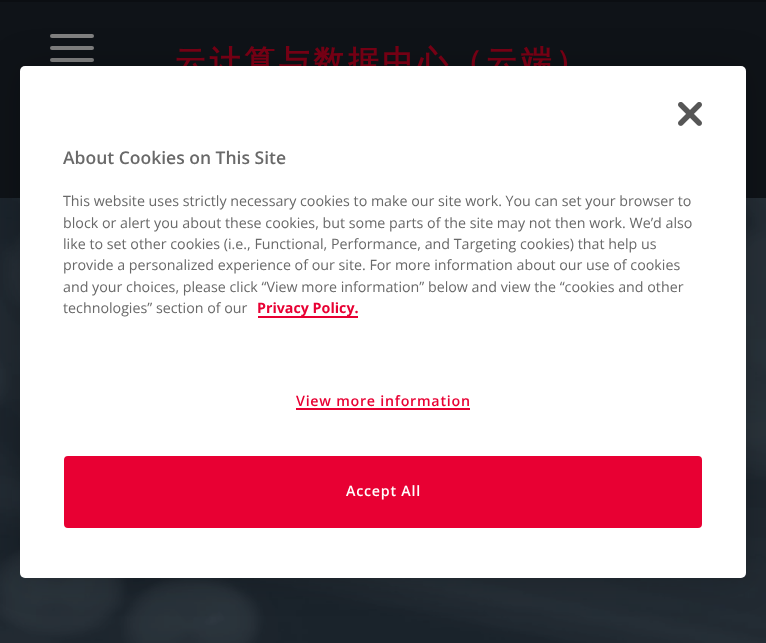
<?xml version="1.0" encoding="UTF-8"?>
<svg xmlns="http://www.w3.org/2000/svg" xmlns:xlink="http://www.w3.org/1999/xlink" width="766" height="643">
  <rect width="100%" height="100%" fill="#ffffff" />
  <image x="0" y="198" width="766" height="445" xlink:href="image1.png" />
  <rect width="766" height="2" fill="#0b0e12" />
  <rect y="2" width="766" height="196" fill="#0f1318" />
  <rect x="50" y="34" width="44" height="4" rx="2" fill="#808080" />
  <rect x="50" y="46" width="44" height="4" rx="2" fill="#808080" />
  <rect x="50" y="58" width="44" height="4" rx="2" fill="#808080" />
  <rect x="20" y="66" width="726" height="512" rx="5" fill="#000000" fill-opacity="0.2" filter="blur(18px)" />
  <text x="175" y="72" style="font-family: WenQuanYi Zen Hei; font-size: 30.6px; font-weight: bold; letter-spacing: 4px; fill: #740014">云计算与数据中心（云端）</text>
  <rect x="20" y="66" width="726" height="512" rx="5" fill="#ffffff" />
  <image x="678" y="102" width="24" height="24" xlink:href="image2.png" />
  <text x="63" y="164" style="font-family: Open Sans; font-size: 17.5px; font-weight: 600; fill: #696969">About Cookies on This Site</text>
  <text x="63" y="206" style="font-family: Open Sans; font-size: 14.25px; fill: #696969">This website uses strictly necessary cookies to make our site work. You can set your browser to</text>
  <text x="63" y="228" style="font-family: Open Sans; font-size: 14.25px; fill: #696969">block or alert you about these cookies, but some parts of the site may not then work. We’d also</text>
  <text x="63" y="249" style="font-family: Open Sans; font-size: 14.25px; fill: #696969">like to set other cookies (i.e., Functional, Performance, and Targeting cookies) that help us</text>
  <text x="63" y="270" style="font-family: Open Sans; font-size: 14.25px; fill: #696969">provide a personalized experience of our site. For more information about our use of cookies</text>
  <text x="63" y="292" style="font-family: Open Sans; font-size: 14.25px; fill: #696969">and your choices, please click “View more information” below and view the “cookies and other</text>
  <text x="63" y="313" style="font-family: Open Sans; font-size: 14.25px; fill: #696969">technologies” section of our</text>
  <rect x="258" y="316" width="100" height="2" fill="#e80033" />
  <text x="257" y="313" style="font-family: Open Sans; font-size: 14.25px; font-weight: bold; fill: #e80033">Privacy Policy.</text>
  <text x="296" y="406" style="font-family: Open Sans; font-size: 14.25px; font-weight: 600; letter-spacing: 0.75px; fill: #e80033">View more information</text>
  <rect x="296" y="408" width="174" height="2" fill="#e80033" />
  <rect x="65" y="457" width="636" height="70" rx="3" fill="#e80033" stroke="#e80033" stroke-width="2" />
  <text x="346" y="496" style="font-family: Open Sans; font-size: 14.25px; font-weight: 600; letter-spacing: 0.75px; fill: #ffffff">Accept All</text>
</svg>
